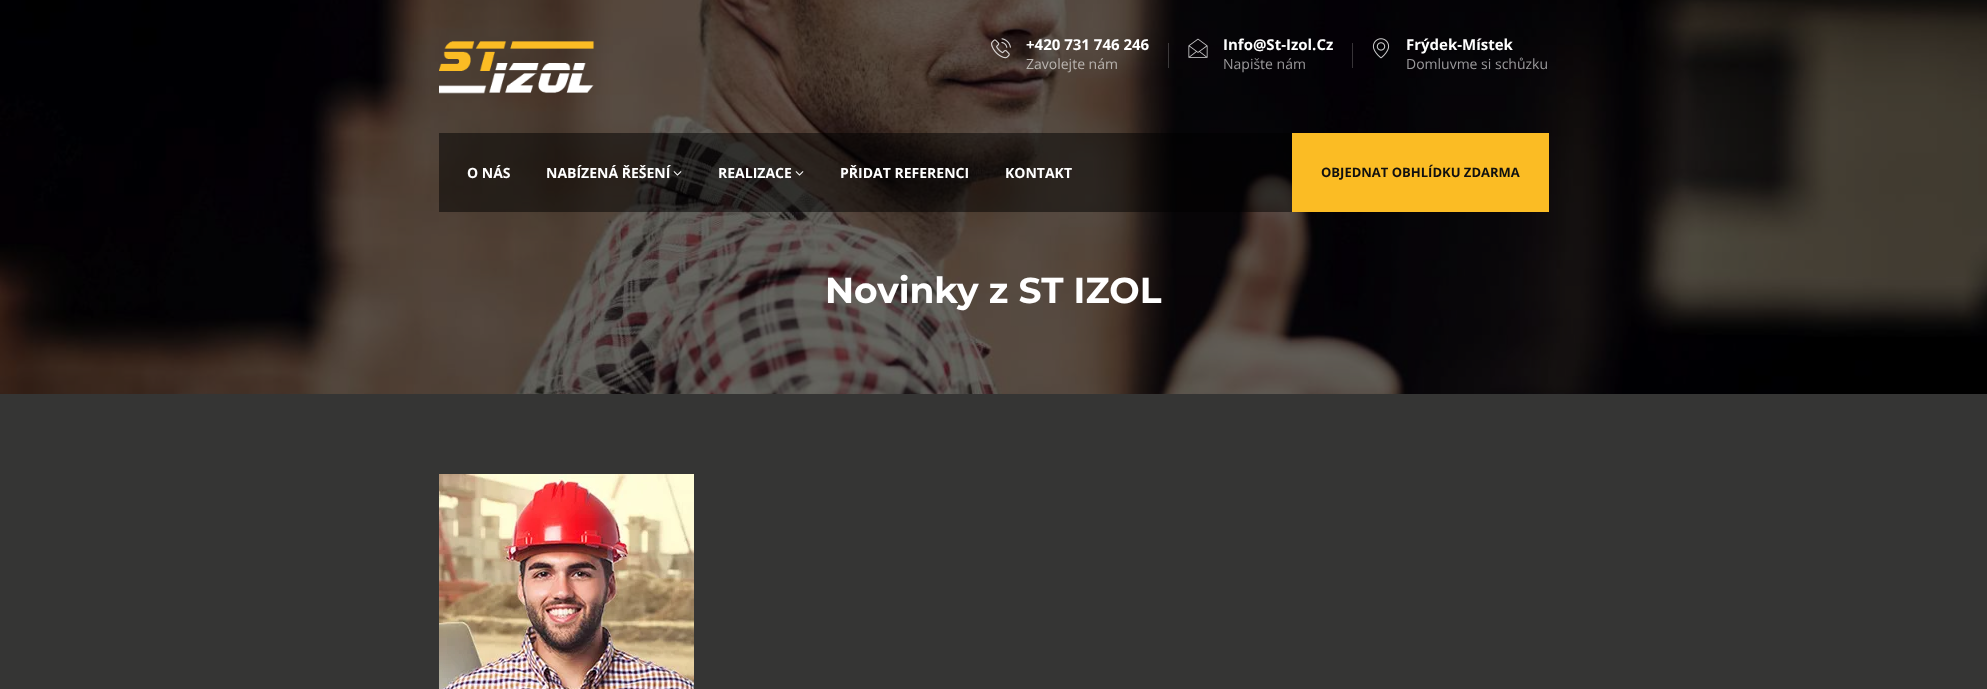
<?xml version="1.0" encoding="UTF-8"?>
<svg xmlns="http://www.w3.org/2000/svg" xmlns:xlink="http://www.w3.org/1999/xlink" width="1987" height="689">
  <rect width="100%" height="100%" fill="#353534" />
  <image x="0" y="0" width="1987" height="394" xlink:href="image7.png" />
  <image x="439" y="41" width="156" height="53" xlink:href="image1.png" />
  <image x="991" y="38" width="20" height="21" xlink:href="image2.png" />
  <rect x="1168" y="43" width="1" height="25" fill="#ffffff" fill-opacity="0.2" />
  <image x="1188" y="38" width="20" height="20" xlink:href="image3.png" />
  <rect x="1352" y="43" width="1" height="25" fill="#373337" />
  <image x="1372" y="38" width="18" height="21" xlink:href="image4.png" />
  <rect x="439" y="133" width="853" height="79" fill="#000000" fill-opacity="0.5" />
  <image x="673" y="171" width="9" height="5" xlink:href="image5.png" />
  <image x="795" y="171" width="9" height="5" xlink:href="image6.png" />
  <rect x="1292" y="133" width="257" height="79" fill="#fbbc24" />
  <image x="439" y="474" width="255" height="215" xlink:href="image8.png" />
  <text x="1026" y="50" style="font-family: Open Sans; font-size: 15px; font-weight: bold; fill: #ffffff">+420 731 746 246</text>
  <text x="1026" y="69" style="font-family: Open Sans; font-size: 14px; fill: #b9b4b0">Zavolejte nám</text>
  <text x="1223" y="50" style="font-family: Open Sans; font-size: 15px; font-weight: bold; fill: #ffffff">Info@St-Izol.Cz</text>
  <text x="1223" y="69" style="font-family: Open Sans; font-size: 14px; fill: #9b9a9c">Napište nám</text>
  <text x="1406" y="50" style="font-family: Open Sans; font-size: 15px; font-weight: bold; fill: #ffffff">Frýdek-Místek</text>
  <text x="1406" y="69" style="font-family: Open Sans; font-size: 14px; fill: #9b9a9c">Domluvme si schůzku</text>
  <text x="467" y="178" style="font-family: Open Sans; font-size: 14px; font-weight: bold; fill: #ffffff">O NÁS</text>
  <text x="546" y="178" style="font-family: Open Sans; font-size: 14px; font-weight: bold; fill: #ffffff">NABÍZENÁ ŘEŠENÍ</text>
  <text x="718" y="178" style="font-family: Open Sans; font-size: 14px; font-weight: bold; fill: #ffffff">REALIZACE</text>
  <text x="840" y="178" style="font-family: Open Sans; font-size: 14px; font-weight: bold; fill: #ffffff">PŘIDAT REFERENCI</text>
  <text x="1005" y="178" style="font-family: Open Sans; font-size: 14px; font-weight: bold; fill: #ffffff">KONTAKT</text>
  <text x="1321" y="177" style="font-family: Open Sans; font-size: 13px; font-weight: bold; fill: #101010">OBJEDNAT OBHLÍDKU ZDARMA</text>
  <text x="825" y="303" style="font-family: Montserrat; font-size: 36px; font-weight: bold; fill: #ffffff">Novinky z ST IZOL</text>
</svg>
